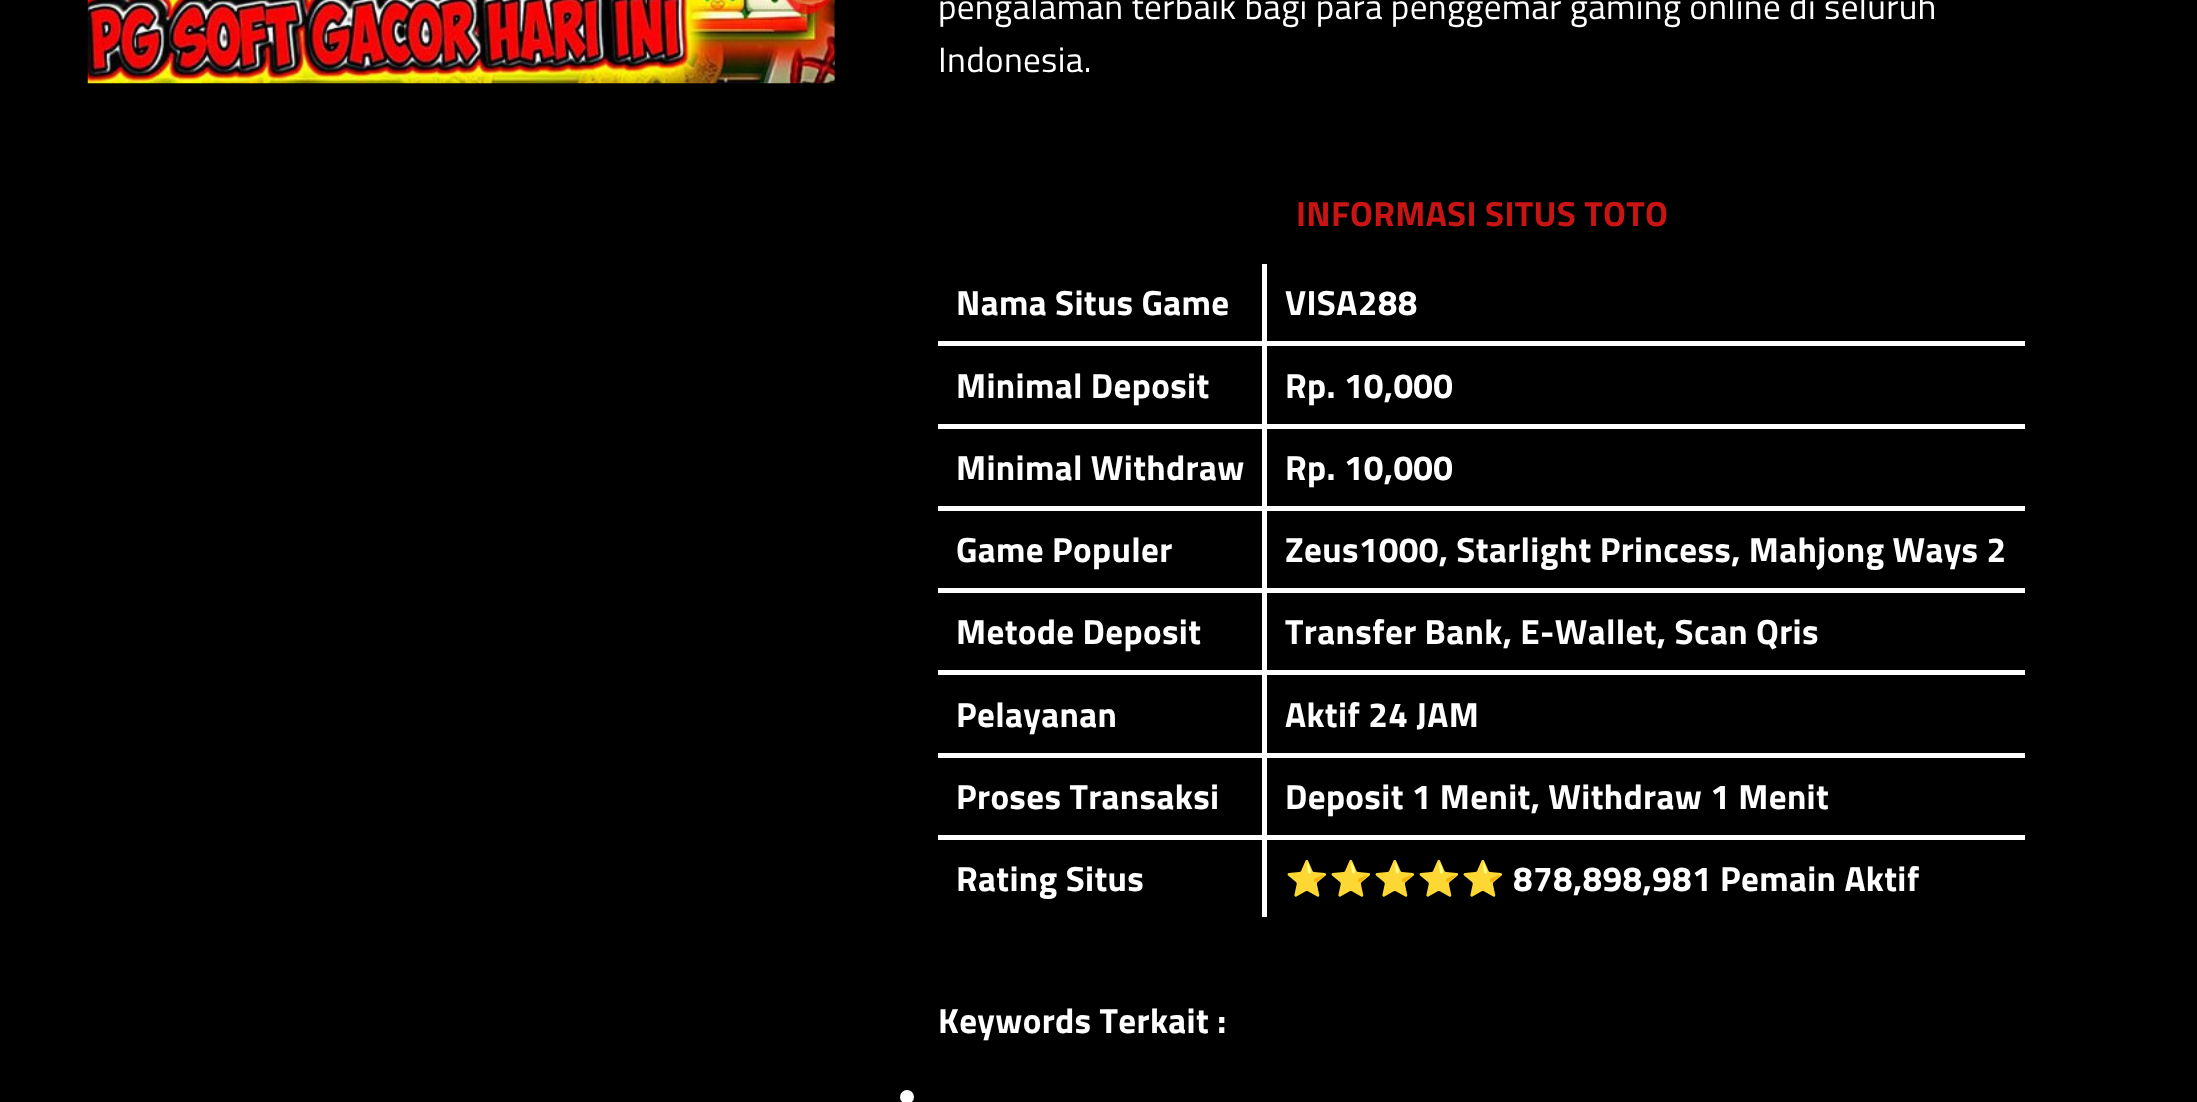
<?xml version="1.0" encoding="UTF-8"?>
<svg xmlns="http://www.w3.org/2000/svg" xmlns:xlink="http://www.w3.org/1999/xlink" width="2197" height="1102">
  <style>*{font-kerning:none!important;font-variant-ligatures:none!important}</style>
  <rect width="100%" height="100%" fill="#000000" />
  <image x="87" y="0" width="748" height="84" xlink:href="image1.png" />
  <rect x="1262" y="835" width="5" height="82" fill="#ffffff" />
  <rect x="1262" y="835" width="763" height="5" fill="#ffffff" />
  <rect x="1262" y="753" width="5" height="87" fill="#ffffff" />
  <rect x="1262" y="753" width="763" height="5" fill="#ffffff" />
  <rect x="1262" y="670" width="5" height="88" fill="#ffffff" />
  <rect x="1262" y="670" width="763" height="5" fill="#ffffff" />
  <rect x="1262" y="588" width="5" height="88" fill="#ffffff" />
  <rect x="1262" y="588" width="763" height="5" fill="#ffffff" />
  <rect x="1262" y="506" width="5" height="87" fill="#ffffff" />
  <rect x="1262" y="506" width="763" height="5" fill="#ffffff" />
  <rect x="1262" y="424" width="5" height="87" fill="#ffffff" />
  <rect x="1262" y="424" width="763" height="5" fill="#ffffff" />
  <rect x="1262" y="341" width="5" height="88" fill="#ffffff" />
  <rect x="1262" y="341" width="763" height="5" fill="#ffffff" />
  <rect x="1262" y="264" width="5" height="83" fill="#ffffff" />
  <rect x="938" y="341" width="329" height="5" fill="#ffffff" />
  <rect x="938" y="424" width="329" height="5" fill="#ffffff" />
  <rect x="938" y="506" width="329" height="5" fill="#ffffff" />
  <rect x="938" y="588" width="329" height="5" fill="#ffffff" />
  <rect x="938" y="670" width="329" height="5" fill="#ffffff" />
  <rect x="938" y="753" width="329" height="5" fill="#ffffff" />
  <rect x="938" y="835" width="329" height="5" fill="#ffffff" />
  <circle cx="907" cy="1097" r="7" fill="#ffffff" />
  <text x="938" y="19" style="font-family: Titillium Web; font-size: 35.05px; letter-spacing: 0.35px; fill: #ffffff">pengalaman terbaik bagi para penggemar gaming online di seluruh</text>
  <text x="938" y="72" style="font-family: Titillium Web; font-size: 35.05px; letter-spacing: 0.35px; fill: #ffffff">Indonesia.</text>
  <text x="1296" y="226" style="font-family: Titillium Web; font-size: 35.05px; font-weight: bold; letter-spacing: 0.35px; fill: #c91414">INFORMASI SITUS TOTO</text>
  <text x="956" y="315" style="font-family: Titillium Web; font-size: 35.05px; font-weight: bold; letter-spacing: 0.35px; fill: #ffffff">Nama Situs Game</text>
  <text x="1285" y="315" style="font-family: Titillium Web; font-size: 35.05px; font-weight: bold; letter-spacing: 0.35px; fill: #ffffff">VISA288</text>
  <text x="956" y="398" style="font-family: Titillium Web; font-size: 35.05px; font-weight: bold; letter-spacing: 0.35px; fill: #ffffff">Minimal Deposit</text>
  <text x="1285" y="398" style="font-family: Titillium Web; font-size: 35.05px; font-weight: bold; letter-spacing: 0.35px; fill: #ffffff">Rp. 10,000</text>
  <text x="956" y="480" style="font-family: Titillium Web; font-size: 35.05px; font-weight: bold; letter-spacing: 0.35px; fill: #ffffff">Minimal Withdraw</text>
  <text x="1285" y="480" style="font-family: Titillium Web; font-size: 35.05px; font-weight: bold; letter-spacing: 0.35px; fill: #ffffff">Rp. 10,000</text>
  <text x="956" y="562" style="font-family: Titillium Web; font-size: 35.05px; font-weight: bold; letter-spacing: 0.35px; fill: #ffffff">Game Populer</text>
  <text x="1285" y="562" style="font-family: Titillium Web; font-size: 35.05px; font-weight: bold; letter-spacing: 0.35px; fill: #ffffff">Zeus1000, Starlight Princess, Mahjong Ways 2</text>
  <text x="956" y="644" style="font-family: Titillium Web; font-size: 35.05px; font-weight: bold; letter-spacing: 0.35px; fill: #ffffff">Metode Deposit</text>
  <text x="1285" y="644" style="font-family: Titillium Web; font-size: 35.05px; font-weight: bold; letter-spacing: 0.35px; fill: #ffffff">Transfer Bank, E-Wallet, Scan Qris</text>
  <text x="956" y="727" style="font-family: Titillium Web; font-size: 35.05px; font-weight: bold; letter-spacing: 0.35px; fill: #ffffff">Pelayanan</text>
  <text x="1285" y="727" style="font-family: Titillium Web; font-size: 35.05px; font-weight: bold; letter-spacing: 0.35px; fill: #ffffff">Aktif 24 JAM</text>
  <text x="956" y="809" style="font-family: Titillium Web; font-size: 35.05px; font-weight: bold; letter-spacing: 0.35px; fill: #ffffff">Proses Transaksi</text>
  <text x="1285" y="809" style="font-family: Titillium Web; font-size: 35.05px; font-weight: bold; letter-spacing: 0.35px; fill: #ffffff">Deposit 1 Menit, Withdraw 1 Menit</text>
  <text x="956" y="891" style="font-family: Titillium Web; font-size: 35.05px; font-weight: bold; letter-spacing: 0.35px; fill: #ffffff">Rating Situs</text>
  <text x="1285" y="891" style="font-family: Noto Color Emoji; font-size: 35.05px; font-weight: bold; letter-spacing: 0.35px; fill: #ffffff">⭐⭐⭐⭐⭐</text>
  <text x="1513" y="891" style="font-family: Titillium Web; font-size: 35.05px; font-weight: bold; letter-spacing: 0.35px; fill: #ffffff">878,898,981 Pemain Aktif</text>
  <text x="938" y="1033" style="font-family: Titillium Web; font-size: 35.05px; font-weight: bold; letter-spacing: 0.35px; fill: #ffffff">Keywords Terkait :</text>
</svg>
